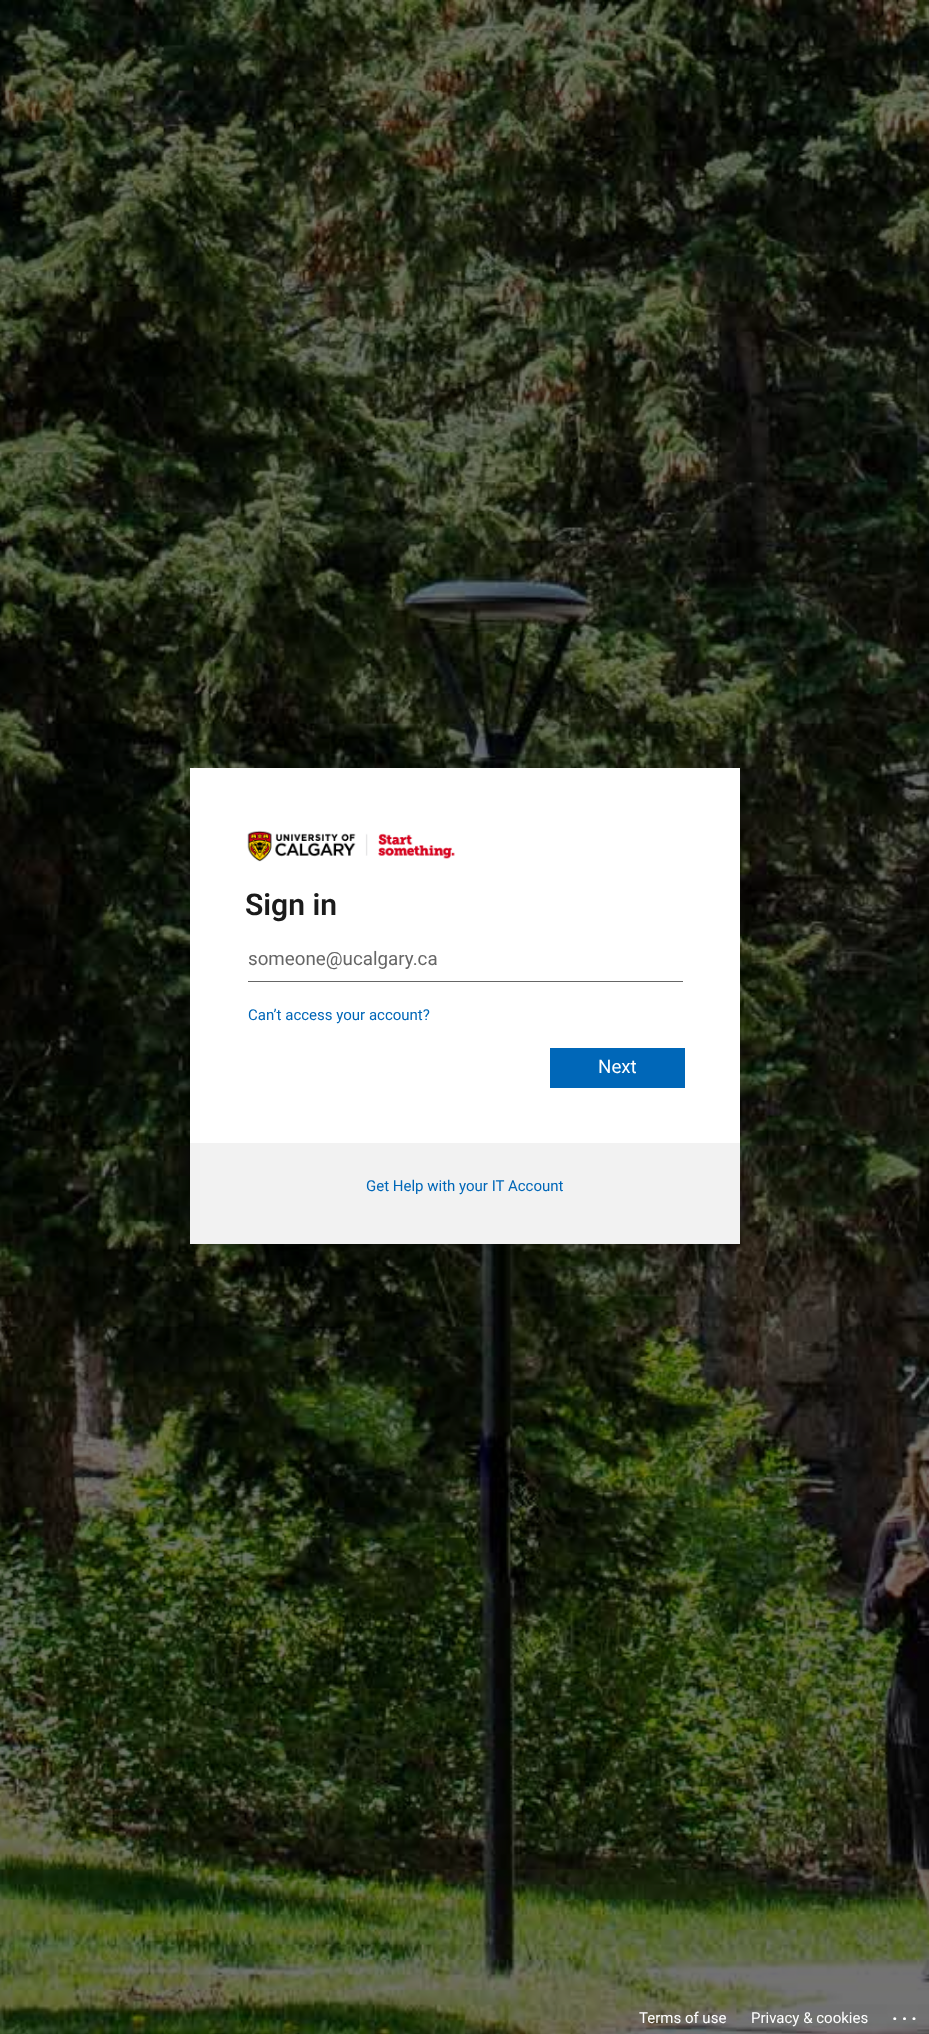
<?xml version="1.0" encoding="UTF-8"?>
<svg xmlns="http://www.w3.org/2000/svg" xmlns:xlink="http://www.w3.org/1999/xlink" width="929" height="2034">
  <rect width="100%" height="100%" fill="#ffffff" />
  <image x="0" y="0" width="929" height="2034" xlink:href="image1.png" />
  <rect x="190" y="770" width="550" height="476" fill="#000000" fill-opacity="0.2" filter="blur(4px)" />
  <rect x="190" y="768" width="550" height="375" fill="#ffffff" />
  <image x="247" y="830" width="208" height="32" xlink:href="image2.png" />
  <rect x="248" y="981" width="435" height="1" fill="#666666" />
  <rect x="550" y="1048" width="135" height="40" fill="#0067b8" />
  <rect x="190" y="1143" width="550" height="101" fill="#f2f2f2" />
  <text x="245" y="915" style="font-family: Roboto; font-size: 30px; font-weight: 600; fill: #1b1b1b">Sign in</text>
  <text x="248" y="965" style="font-family: Roboto; font-size: 18.75px; fill: #666666">someone@ucalgary.ca</text>
  <text x="248" y="1020" style="font-family: Roboto; font-size: 15px; fill: #0067b8">Can’t access your account?</text>
  <text x="598" y="1073" style="font-family: Roboto; font-size: 18.75px; fill: #ffffff">Next</text>
  <text x="366" y="1191" style="font-family: Roboto; font-size: 15px; fill: #0067b8">Get Help with your IT Account</text>
  <text x="639" y="2023" style="font-family: Roboto; font-size: 15px; fill: #ffffff">Terms of use</text>
  <text x="751" y="2023" style="font-family: Roboto; font-size: 15px; fill: #ffffff">Privacy &amp; cookies</text>
  <text x="892" y="2020" style="font-family: Roboto; font-size: 20px; font-weight: 600; letter-spacing: 4px; fill: #ffffff">...</text>
</svg>
